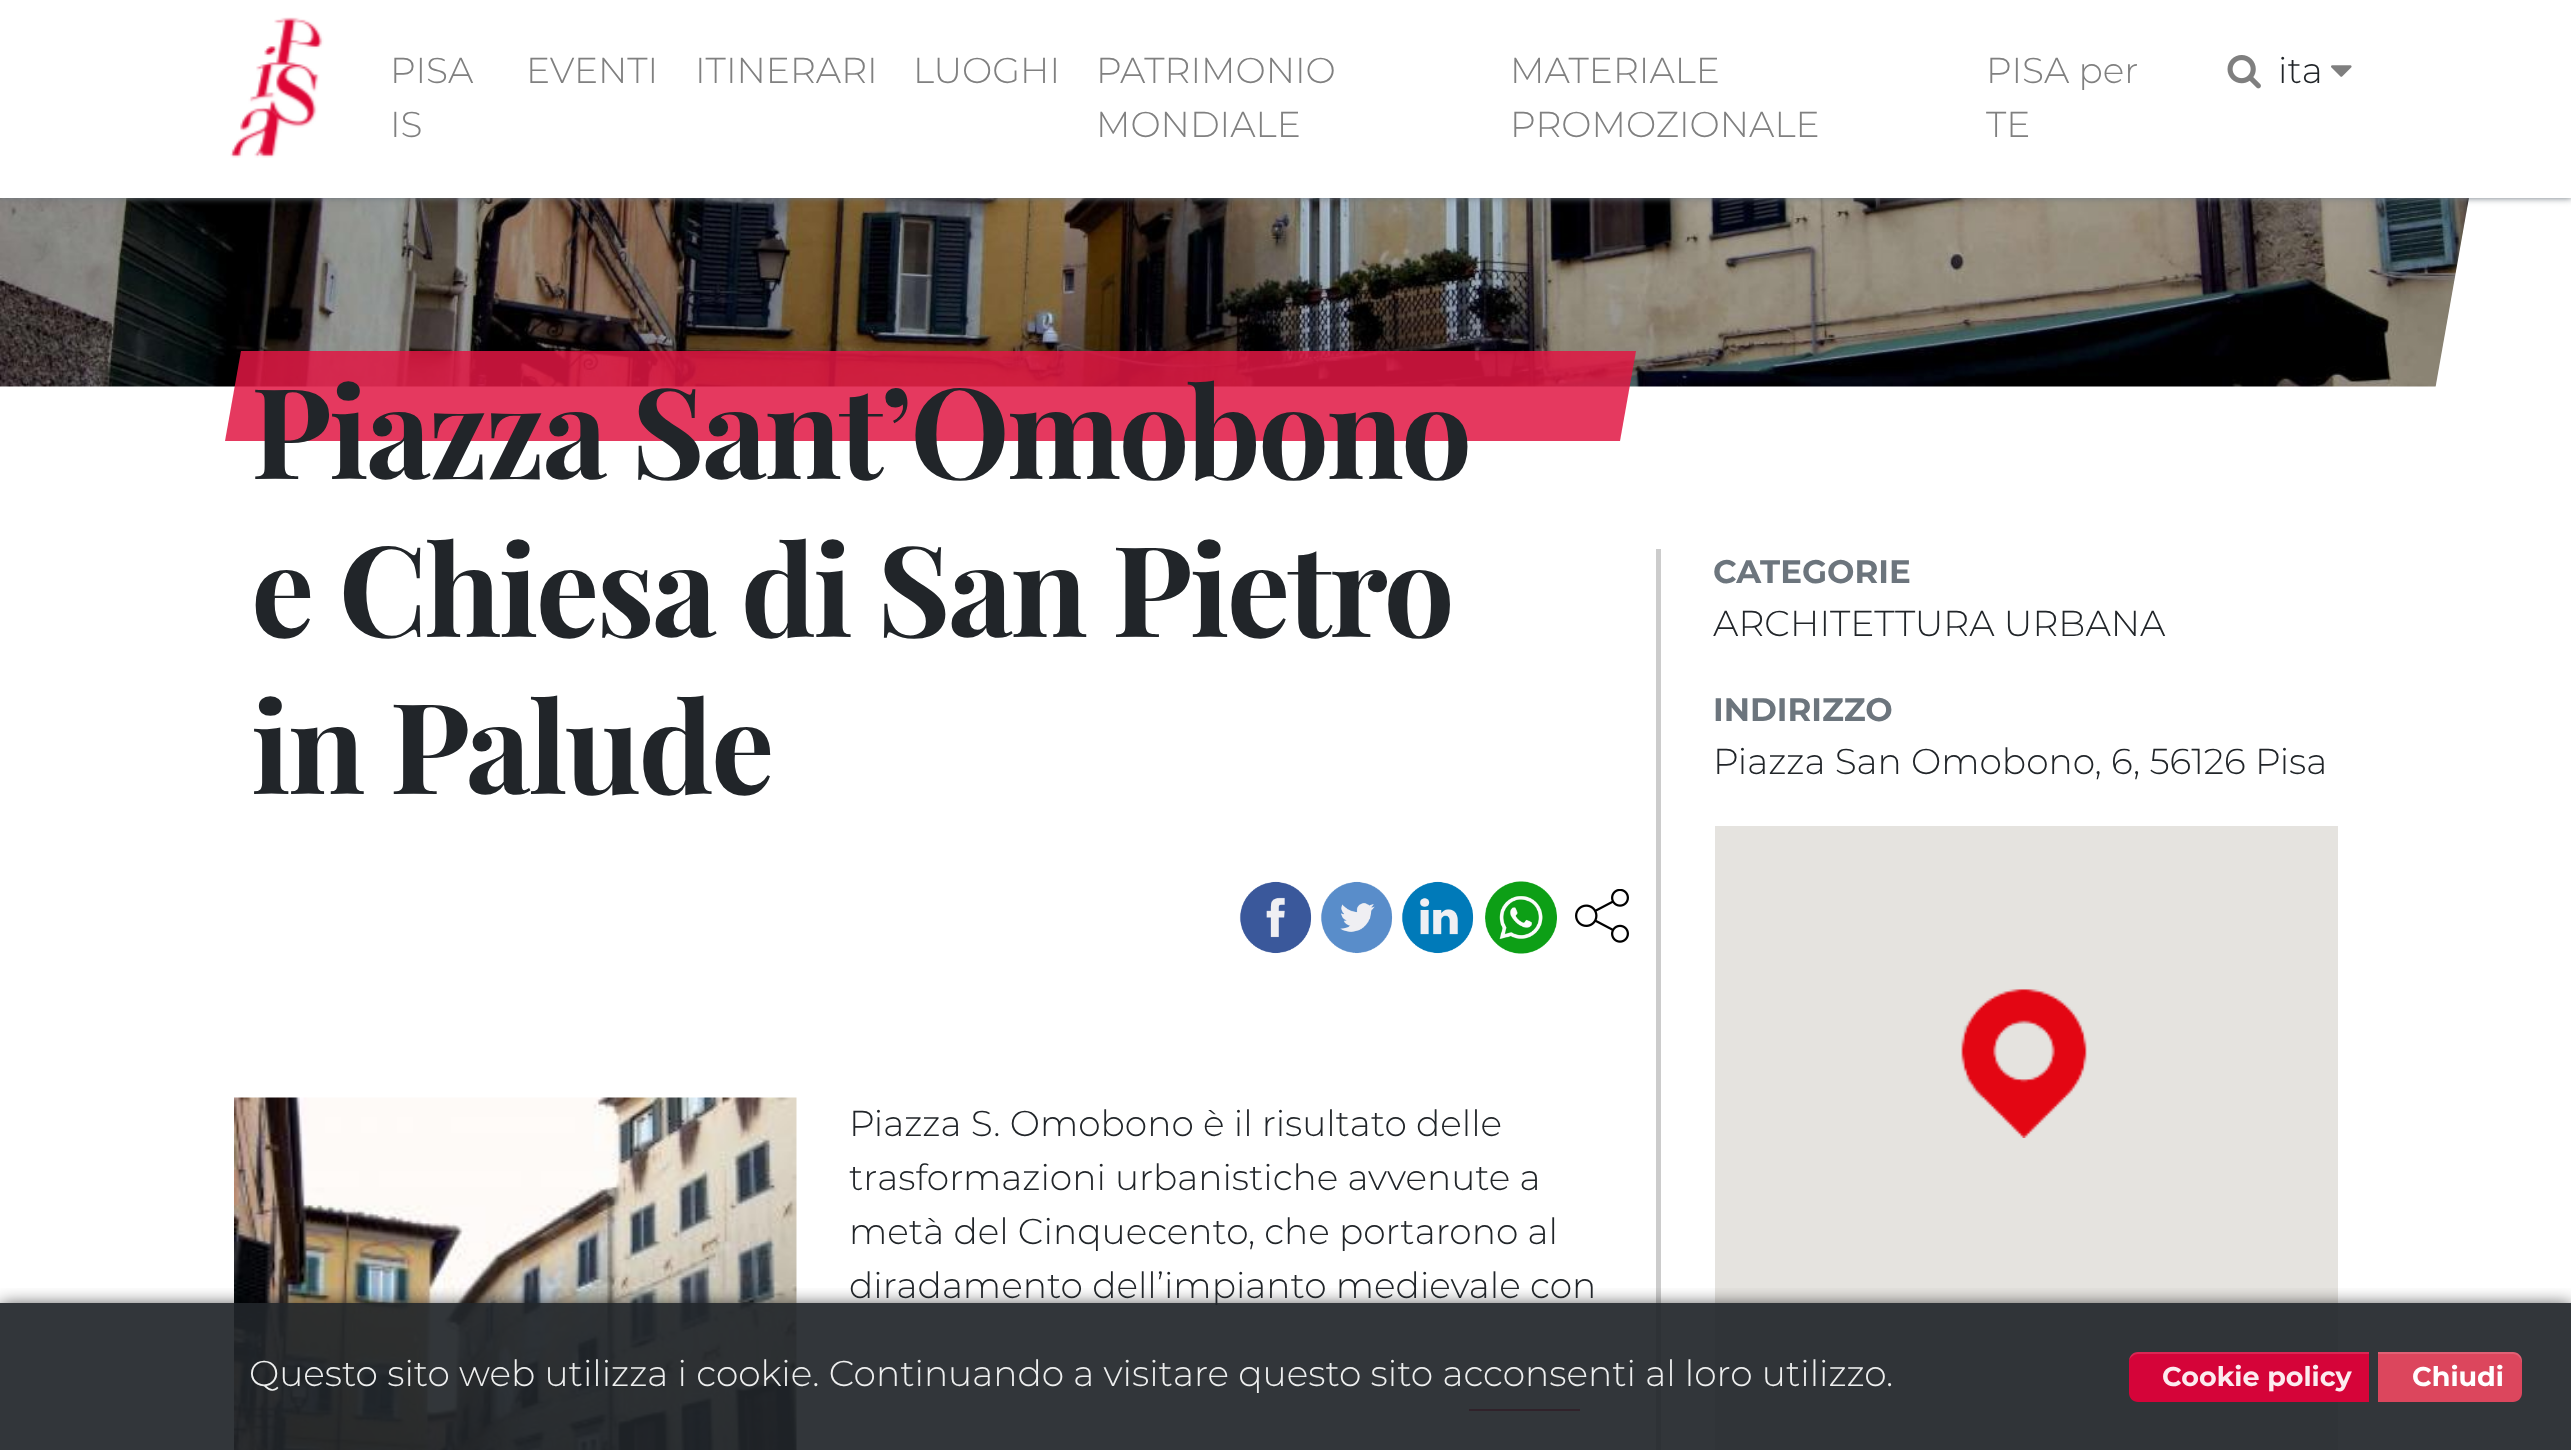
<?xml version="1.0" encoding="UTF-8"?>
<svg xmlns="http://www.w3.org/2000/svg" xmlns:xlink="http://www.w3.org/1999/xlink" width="2571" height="1450">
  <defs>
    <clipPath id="clip1"><rect x="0" y="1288" width="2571" height="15" /></clipPath>
  </defs>
  <rect width="100%" height="100%" fill="#ffffff" />
  <image x="0" y="198" width="2469" height="189" xlink:href="image4.png" />
  <rect width="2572" height="198" fill="#6c757d" filter="blur(3.5px)" />
  <rect width="2571" height="198" fill="#ffffff" />
  <image x="230" y="17" width="94" height="141" xlink:href="image1.png" />
  <image x="2227" y="55" width="34" height="34" xlink:href="image2.png" />
  <image x="2331" y="65" width="21" height="12" xlink:href="image3.png" />
  <path d="M 241 351 h 1395 l -16 90 h -1395 z" fill="#e11643" fill-opacity="0.85" />
  <image x="1239" y="881" width="73" height="73" xlink:href="image5.png" />
  <image x="1320" y="881" width="73" height="73" xlink:href="image6.png" />
  <image x="1401" y="881" width="73" height="73" xlink:href="image7.png" />
  <image x="1485" y="881" width="72" height="73" xlink:href="image8.png" />
  <image x="1575" y="889" width="54" height="54" xlink:href="image9.png" />
  <image x="234" y="1097" width="563" height="353" xlink:href="image10.png" />
  <rect x="1469" y="1409" width="111" height="2" fill="#e4003a" />
  <rect x="1656" y="549" width="5" height="901" fill="#cccccc" />
  <rect x="1715" y="826" width="623" height="624" fill="#e5e3df" />
  <image x="1961" y="989" width="126" height="149" xlink:href="image11.png" />
  <g clip-path="url(#clip1)">
    <rect y="1305" width="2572" height="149" fill="#000000" fill-opacity="0.74" filter="blur(9px)" />
  </g>
  <text x="390" y="83" style="font-family: Montserrat; font-size: 36px; font-weight: 300; fill: #808080">PISA</text>
  <text x="390" y="137" style="font-family: Montserrat; font-size: 36px; font-weight: 300; fill: #808080">IS</text>
  <text x="526" y="83" style="font-family: Montserrat; font-size: 36px; font-weight: 300; fill: #808080">EVENTI</text>
  <text x="695" y="83" style="font-family: Montserrat; font-size: 36px; font-weight: 300; fill: #808080">ITINERARI</text>
  <text x="913" y="83" style="font-family: Montserrat; font-size: 36px; font-weight: 300; fill: #808080">LUOGHI</text>
  <text x="1096" y="83" style="font-family: Montserrat; font-size: 36px; font-weight: 300; fill: #808080">PATRIMONIO</text>
  <text x="1096" y="137" style="font-family: Montserrat; font-size: 36px; font-weight: 300; fill: #808080">MONDIALE</text>
  <text x="1510" y="83" style="font-family: Montserrat; font-size: 36px; font-weight: 300; fill: #808080">MATERIALE</text>
  <text x="1510" y="137" style="font-family: Montserrat; font-size: 36px; font-weight: 300; fill: #808080">PROMOZIONALE</text>
  <text x="1986" y="83" style="font-family: Montserrat; font-size: 36px; font-weight: 300; fill: #808080">PISA per</text>
  <text x="1986" y="137" style="font-family: Montserrat; font-size: 36px; font-weight: 300; fill: #808080">TE</text>
  <text x="2278" y="83" style="font-family: Montserrat; font-size: 36px; font-weight: 300; fill: #212529">ita</text>
  <text x="251" y="479" style="font-family: Playfair Display; font-size: 126px; font-weight: bold; letter-spacing: -2.7px; fill: #212529">Piazza Sant’Omobono</text>
  <text x="251" y="637" style="font-family: Playfair Display; font-size: 126px; font-weight: bold; letter-spacing: -2.7px; fill: #212529">e Chiesa di San Pietro</text>
  <text x="251" y="794" style="font-family: Playfair Display; font-size: 126px; font-weight: bold; letter-spacing: -2.7px; fill: #212529">in Palude</text>
  <text x="849" y="1136" style="font-family: Montserrat; font-size: 36px; font-weight: 300; fill: #212529">Piazza S. Omobono è il risultato delle</text>
  <text x="849" y="1190" style="font-family: Montserrat; font-size: 36px; font-weight: 300; fill: #212529">trasformazioni urbanistiche avvenute a</text>
  <text x="849" y="1244" style="font-family: Montserrat; font-size: 36px; font-weight: 300; fill: #212529">metà del Cinquecento, che portarono al</text>
  <text x="849" y="1298" style="font-family: Montserrat; font-size: 36px; font-weight: 300; fill: #212529">diradamento dell’impianto medievale con</text>
  <text x="1713" y="583" style="font-family: Montserrat; font-size: 32.5px; font-weight: bold; fill: #6c757d">CATEGORIE</text>
  <text x="1713" y="636" style="font-family: Montserrat; font-size: 36px; font-weight: 300; fill: #212529">ARCHITETTURA URBANA</text>
  <text x="1713" y="721" style="font-family: Montserrat; font-size: 32.5px; font-weight: bold; fill: #6c757d">INDIRIZZO</text>
  <text x="1713" y="774" style="font-family: Montserrat; font-size: 36px; font-weight: 300; fill: #212529">Piazza San Omobono, 6, 56126 Pisa</text>
  <rect y="1303" width="2571" height="147" fill="#212529" fill-opacity="0.92" />
  <text x="249" y="1386" style="font-family: Montserrat; font-size: 36px; font-weight: 300; fill: #eeefef">Questo sito web utilizza i cookie. Continuando a visitare questo sito acconsenti al loro utilizzo.</text>
  <path d="M 2138 1352 h 231 v 50 h -231 c -5 0 -9 -4 -9 -9 v -32 c 0 -5 4 -9 9 -9 z" fill="#e4003a" fill-opacity="0.92" />
  <path d="M 2138 1354 h 231 v -2 h -231 c -5 0 -8 3 -9 8 c 2 -3 5 -6 9 -6 z" fill="#ffffff" fill-opacity="0.14" />
  <text x="2162" y="1386" style="font-family: Montserrat; font-size: 27px; font-weight: bold; fill: #fcebef">Cookie policy</text>
  <path d="M 2378 1352 h 135 c 5 0 9 4 9 9 v 32 c 0 5 -4 9 -9 9 h -135 z" fill="#dc465d" />
  <path d="M 2378 1354 h 135 c 5 0 9 5 9 10 v -3 c 0 -5 -4 -9 -9 -9 h -135 z" fill="#ffffff" fill-opacity="0.15" />
  <text x="2412" y="1386" style="font-family: Montserrat; font-size: 27px; font-weight: bold; fill: #ffffff">Chiudi</text>
</svg>
